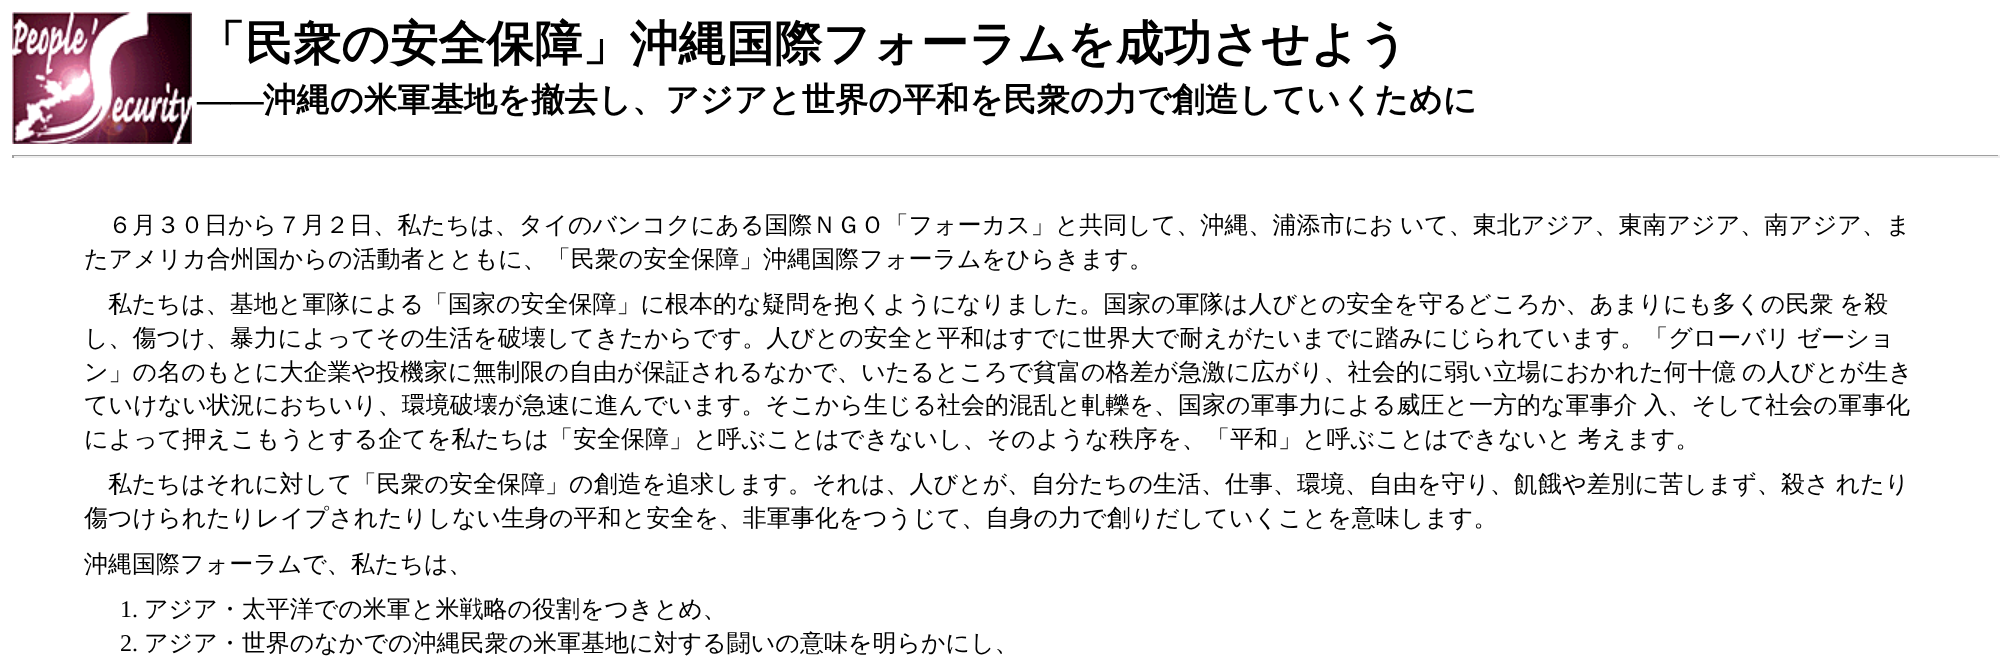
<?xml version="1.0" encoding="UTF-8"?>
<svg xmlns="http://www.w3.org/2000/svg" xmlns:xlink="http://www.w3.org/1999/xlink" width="2011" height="669">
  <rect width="100%" height="100%" fill="#ffffff" />
  <image x="12" y="12" width="180" height="132" xlink:href="image1.png" />
  <rect x="12" y="155" width="1988" height="1" fill="#9f9f9f" />
  <rect x="1998" y="155" width="2" height="3" fill="#eeeeee" />
  <rect x="12" y="156" width="1988" height="2" fill="#eeeeee" />
  <rect x="12" y="155" width="2" height="3" fill="#9f9f9f" />
  <text x="197" y="60" style="font-family: WenQuanYi Zen Hei; font-size: 48px; font-weight: bold; fill: #000000">「民衆の安全保障」沖縄国際フォーラムを成功させよう</text>
  <text x="197" y="111" style="font-family: Liberation Serif; font-size: 33.35px; font-weight: bold; fill: #000000">――</text>
  <text x="263" y="111" style="font-family: WenQuanYi Zen Hei; font-size: 33.35px; font-weight: bold; fill: #000000">沖縄の米軍基地を撤去し、アジアと世界の平和を民衆の力で創造していくために</text>
  <text x="108" y="233" word-spacing="-1" style="font-family: WenQuanYi Zen Hei; font-size: 24px; font-weight: 500; fill: #000000">６月３０日から７月２日、私たちは、タイのバンコクにある国際ＮＧＯ「フォーカス」と共同して、沖縄、浦添市にお いて、東北アジア、東南アジア、南アジア、ま</text>
  <text x="84" y="267" style="font-family: WenQuanYi Zen Hei; font-size: 24px; font-weight: 500; fill: #000000">たアメリカ合州国からの活動者とともに、「民衆の安全保障」沖縄国際フォーラムをひらきます。</text>
  <text x="108" y="312" word-spacing="-1" style="font-family: WenQuanYi Zen Hei; font-size: 24px; font-weight: 500; fill: #000000">私たちは、基地と軍隊による「国家の安全保障」に根本的な疑問を抱くようになりました。国家の軍隊は人びとの安全を守るどころか、あまりにも多くの民衆 を殺</text>
  <text x="84" y="346" word-spacing="-1" style="font-family: WenQuanYi Zen Hei; font-size: 24px; font-weight: 500; fill: #000000">し、傷つけ、暴力によってその生活を破壊してきたからです。人びとの安全と平和はすでに世界大で耐えがたいまでに踏みにじられています。「グローバリ ゼーショ</text>
  <text x="84" y="380" word-spacing="-1" style="font-family: WenQuanYi Zen Hei; font-size: 24px; font-weight: 500; fill: #000000">ン」の名のもとに大企業や投機家に無制限の自由が保証されるなかで、いたるところで貧富の格差が急激に広がり、社会的に弱い立場におかれた何十億 の人びとが生き</text>
  <text x="84" y="413" word-spacing="-1" style="font-family: WenQuanYi Zen Hei; font-size: 24px; font-weight: 500; fill: #000000">ていけない状況におちいり、環境破壊が急速に進んでいます。そこから生じる社会的混乱と軋轢を、国家の軍事力による威圧と一方的な軍事介 入、そして社会の軍事化</text>
  <text x="84" y="447" word-spacing="-1" style="font-family: WenQuanYi Zen Hei; font-size: 24px; font-weight: 500; fill: #000000">によって押えこもうとする企てを私たちは「安全保障」と呼ぶことはできないし、そのような秩序を、「平和」と呼ぶことはできないと 考えます。</text>
  <text x="108" y="492" word-spacing="-1" style="font-family: WenQuanYi Zen Hei; font-size: 24px; font-weight: 500; fill: #000000">私たちはそれに対して「民衆の安全保障」の創造を追求します。それは、人びとが、自分たちの生活、仕事、環境、自由を守り、飢餓や差別に苦しまず、殺さ れたり</text>
  <text x="84" y="526" style="font-family: WenQuanYi Zen Hei; font-size: 24px; font-weight: 500; fill: #000000">傷つけられたりレイプされたりしない生身の平和と安全を、非軍事化をつうじて、自身の力で創りだしていくことを意味します。</text>
  <text x="84" y="572" style="font-family: WenQuanYi Zen Hei; font-size: 24px; font-weight: 500; fill: #000000">沖縄国際フォーラムで、私たちは、</text>
  <text x="120" y="617" style="font-family: Liberation Serif; font-size: 24px; fill: #000000">1.</text>
  <text x="144" y="617" style="font-family: WenQuanYi Zen Hei; font-size: 24px; font-weight: 500; fill: #000000">アジア・太平洋での米軍と米戦略の役割をつきとめ、</text>
  <text x="120" y="651" style="font-family: Liberation Serif; font-size: 24px; fill: #000000">2.</text>
  <text x="144" y="651" style="font-family: WenQuanYi Zen Hei; font-size: 24px; font-weight: 500; fill: #000000">アジア・世界のなかでの沖縄民衆の米軍基地に対する闘いの意味を明らかにし、</text>
</svg>
